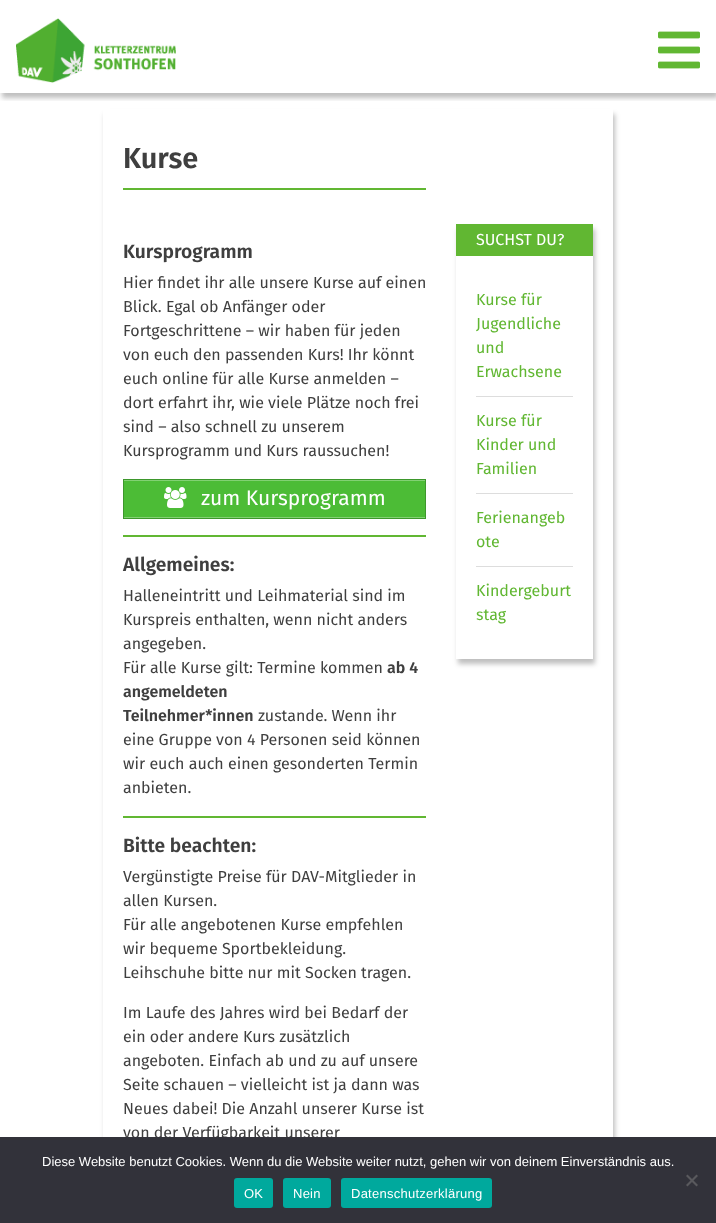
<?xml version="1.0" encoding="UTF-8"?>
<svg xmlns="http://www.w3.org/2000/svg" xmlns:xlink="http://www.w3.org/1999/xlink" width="716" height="1223">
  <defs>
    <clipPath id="clip1"><rect x="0" y="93" width="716" height="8" /></clipPath>
    <clipPath id="clip2"><path d="M 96 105 h 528 v 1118 h -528 z m 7 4 h 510 v 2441 h -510 z" clip-rule="evenodd" /></clipPath>
    <clipPath id="clip3"><path d="M 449 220 h 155 v 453 h -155 z m 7 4 h 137 v 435 h -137 z" clip-rule="evenodd" /></clipPath>
  </defs>
  <rect width="100%" height="100%" fill="#ffffff" />
  <g clip-path="url(#clip1)">
    <rect x="2" y="5" width="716" height="93" fill="#000000" fill-opacity="0.25" filter="blur(2.5px)" />
  </g>
  <image x="16" y="18" width="160" height="65" xlink:href="image1.png" />
  <image x="658" y="31" width="42" height="38" xlink:href="image2.png" />
  <g clip-path="url(#clip2)">
    <rect x="105" y="114" width="510" height="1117" fill="#000000" fill-opacity="0.25" filter="blur(2.5px)" />
  </g>
  <rect x="123" y="188" width="303" height="2" fill="#61b732" />
  <rect x="124" y="481" width="301" height="36" fill="#4cbc36" />
  <rect x="123.5" y="479.5" width="302" height="39" fill="none" stroke="#3d972c" />
  <rect x="124" y="480" width="301" height="1" fill="#82d173" />
  <rect x="124" y="517" width="301" height="1" fill="#82d173" />
  <image x="164" y="487" width="23" height="21" xlink:href="image3.png" />
  <rect x="123" y="535" width="303" height="2" fill="#61b732" />
  <rect x="123" y="816" width="303" height="2" fill="#61b732" />
  <g clip-path="url(#clip3)">
    <rect x="458" y="229" width="137" height="435" fill="#000000" fill-opacity="0.25" filter="blur(2.5px)" />
  </g>
  <rect x="456" y="224" width="137" height="32" fill="#61b732" />
  <rect x="476" y="396" width="97" height="1" fill="#dddddd" />
  <rect x="476" y="493" width="97" height="1" fill="#dddddd" />
  <rect x="476" y="566" width="97" height="1" fill="#dddddd" />
  <text x="123" y="168" style="font-family: Fira Sans; font-size: 29px; font-weight: 600; fill: #3f3f3f">Kurse</text>
  <text x="123" y="258" style="font-family: Fira Sans; font-size: 19.25px; font-weight: 600; fill: #3f3f3f">Kursprogramm</text>
  <text x="123" y="288" style="font-family: Fira Sans; font-size: 16px; fill: #3f3f3f">Hier findet ihr alle unsere Kurse auf einen</text>
  <text x="123" y="312" style="font-family: Fira Sans; font-size: 16px; fill: #3f3f3f">Blick. Egal ob Anfänger oder</text>
  <text x="123" y="336" style="font-family: Fira Sans; font-size: 16px; fill: #3f3f3f">Fortgeschrittene – wir haben für jeden</text>
  <text x="123" y="360" style="font-family: Fira Sans; font-size: 16px; fill: #3f3f3f">von euch den passenden Kurs! Ihr könnt</text>
  <text x="123" y="384" style="font-family: Fira Sans; font-size: 16px; fill: #3f3f3f">euch online für alle Kurse anmelden –</text>
  <text x="123" y="408" style="font-family: Fira Sans; font-size: 16px; fill: #3f3f3f">dort erfahrt ihr, wie viele Plätze noch frei</text>
  <text x="123" y="432" style="font-family: Fira Sans; font-size: 16px; fill: #3f3f3f">sind – also schnell zu unserem</text>
  <text x="123" y="456" style="font-family: Fira Sans; font-size: 16px; fill: #3f3f3f">Kursprogramm und Kurs raussuchen!</text>
  <text x="201" y="505" style="font-family: Fira Sans; font-size: 21px; fill: #ffffff">zum Kursprogramm</text>
  <text x="123" y="571" style="font-family: Fira Sans; font-size: 19.25px; font-weight: 600; fill: #3f3f3f">Allgemeines:</text>
  <text x="123" y="601" style="font-family: Fira Sans; font-size: 16px; fill: #3f3f3f">Halleneintritt und Leihmaterial sind im</text>
  <text x="123" y="625" style="font-family: Fira Sans; font-size: 16px; fill: #3f3f3f">Kurspreis enthalten, wenn nicht anders</text>
  <text x="123" y="649" style="font-family: Fira Sans; font-size: 16px; fill: #3f3f3f">angegeben.</text>
  <text x="123" y="673" style="font-family: Fira Sans; font-size: 16px; fill: #3f3f3f">Für alle Kurse gilt: Termine kommen</text>
  <text x="387" y="673" style="font-family: Fira Sans; font-size: 16px; font-weight: 600; fill: #3f3f3f">ab 4</text>
  <text x="123" y="697" style="font-family: Fira Sans; font-size: 16px; font-weight: 600; fill: #3f3f3f">angemeldeten</text>
  <text x="123" y="721" style="font-family: Fira Sans; font-size: 16px; font-weight: 600; fill: #3f3f3f">Teilnehmer*innen</text>
  <text x="258" y="721" style="font-family: Fira Sans; font-size: 16px; fill: #3f3f3f">zustande. Wenn ihr</text>
  <text x="123" y="745" style="font-family: Fira Sans; font-size: 16px; fill: #3f3f3f">eine Gruppe von 4 Personen seid können</text>
  <text x="123" y="769" style="font-family: Fira Sans; font-size: 16px; fill: #3f3f3f">wir euch auch einen gesonderten Termin</text>
  <text x="123" y="793" style="font-family: Fira Sans; font-size: 16px; fill: #3f3f3f">anbieten.</text>
  <text x="123" y="852" style="font-family: Fira Sans; font-size: 19.25px; font-weight: 600; fill: #3f3f3f">Bitte beachten:</text>
  <text x="123" y="882" style="font-family: Fira Sans; font-size: 16px; fill: #3f3f3f">Vergünstigte Preise für DAV-Mitglieder in</text>
  <text x="123" y="906" style="font-family: Fira Sans; font-size: 16px; fill: #3f3f3f">allen Kursen.</text>
  <text x="123" y="930" style="font-family: Fira Sans; font-size: 16px; fill: #3f3f3f">Für alle angebotenen Kurse empfehlen</text>
  <text x="123" y="954" style="font-family: Fira Sans; font-size: 16px; fill: #3f3f3f">wir bequeme Sportbekleidung.</text>
  <text x="123" y="978" style="font-family: Fira Sans; font-size: 16px; fill: #3f3f3f">Leihschuhe bitte nur mit Socken tragen.</text>
  <text x="123" y="1018" style="font-family: Fira Sans; font-size: 16px; fill: #3f3f3f">Im Laufe des Jahres wird bei Bedarf der</text>
  <text x="123" y="1042" style="font-family: Fira Sans; font-size: 16px; fill: #3f3f3f">ein oder andere Kurs zusätzlich</text>
  <text x="123" y="1066" style="font-family: Fira Sans; font-size: 16px; fill: #3f3f3f">angeboten. Einfach ab und zu auf unsere</text>
  <text x="123" y="1090" style="font-family: Fira Sans; font-size: 16px; fill: #3f3f3f">Seite schauen – vielleicht ist ja dann was</text>
  <text x="123" y="1114" style="font-family: Fira Sans; font-size: 16px; fill: #3f3f3f">Neues dabei! Die Anzahl unserer Kurse ist</text>
  <text x="123" y="1138" style="font-family: Fira Sans; font-size: 16px; fill: #3f3f3f">von der Verfügbarkeit unserer</text>
  <text x="476" y="245" style="font-family: Fira Sans; font-size: 16px; fill: #ffffff">SUCHST DU?</text>
  <text x="476" y="305" style="font-family: Fira Sans; font-size: 16px; fill: #61b732">Kurse für</text>
  <text x="476" y="329" style="font-family: Fira Sans; font-size: 16px; fill: #61b732">Jugendliche</text>
  <text x="476" y="353" style="font-family: Fira Sans; font-size: 16px; fill: #61b732">und</text>
  <text x="476" y="377" style="font-family: Fira Sans; font-size: 16px; fill: #61b732">Erwachsene</text>
  <text x="476" y="426" style="font-family: Fira Sans; font-size: 16px; fill: #61b732">Kurse für</text>
  <text x="476" y="450" style="font-family: Fira Sans; font-size: 16px; fill: #61b732">Kinder und</text>
  <text x="476" y="474" style="font-family: Fira Sans; font-size: 16px; fill: #61b732">Familien</text>
  <text x="476" y="523" style="font-family: Fira Sans; font-size: 16px; fill: #61b732">Ferienangeb</text>
  <text x="476" y="547" style="font-family: Fira Sans; font-size: 16px; fill: #61b732">ote</text>
  <text x="476" y="596" style="font-family: Fira Sans; font-size: 16px; fill: #61b732">Kindergeburt</text>
  <text x="476" y="620" style="font-family: Fira Sans; font-size: 16px; fill: #61b732">stag</text>
  <rect y="1137" width="716" height="86" fill="#32323a" />
  <text x="42" y="1166" style="font-family: Liberation Sans; font-size: 13px; fill: #ffffff">Diese Website benutzt Cookies. Wenn du die Website weiter nutzt, gehen wir von deinem Einverständnis aus.</text>
  <path d="M 696.5 1174.5 l 1.5 1.5 l -10.5 10.5 l -1.5 -1.5 z" fill="#59595d" />
  <path d="M 686 1176 l 1.5 -1.5 l 10.5 10.5 l -1.5 1.5 z" fill="#59595d" />
  <rect x="234" y="1178" width="39" height="30" rx="3" fill="#00a99d" />
  <text x="244" y="1198" style="font-family: Liberation Sans; font-size: 13px; letter-spacing: 0.25px; fill: #ffffff">OK</text>
  <rect x="283" y="1178" width="48" height="30" rx="3" fill="#00a99d" />
  <text x="293" y="1198" style="font-family: Liberation Sans; font-size: 13px; letter-spacing: 0.25px; fill: #ffffff">Nein</text>
  <rect x="341" y="1178" width="151" height="30" rx="3" fill="#00a99d" />
  <text x="351" y="1198" style="font-family: Liberation Sans; font-size: 13px; letter-spacing: 0.25px; fill: #ffffff">Datenschutzerklärung</text>
</svg>
